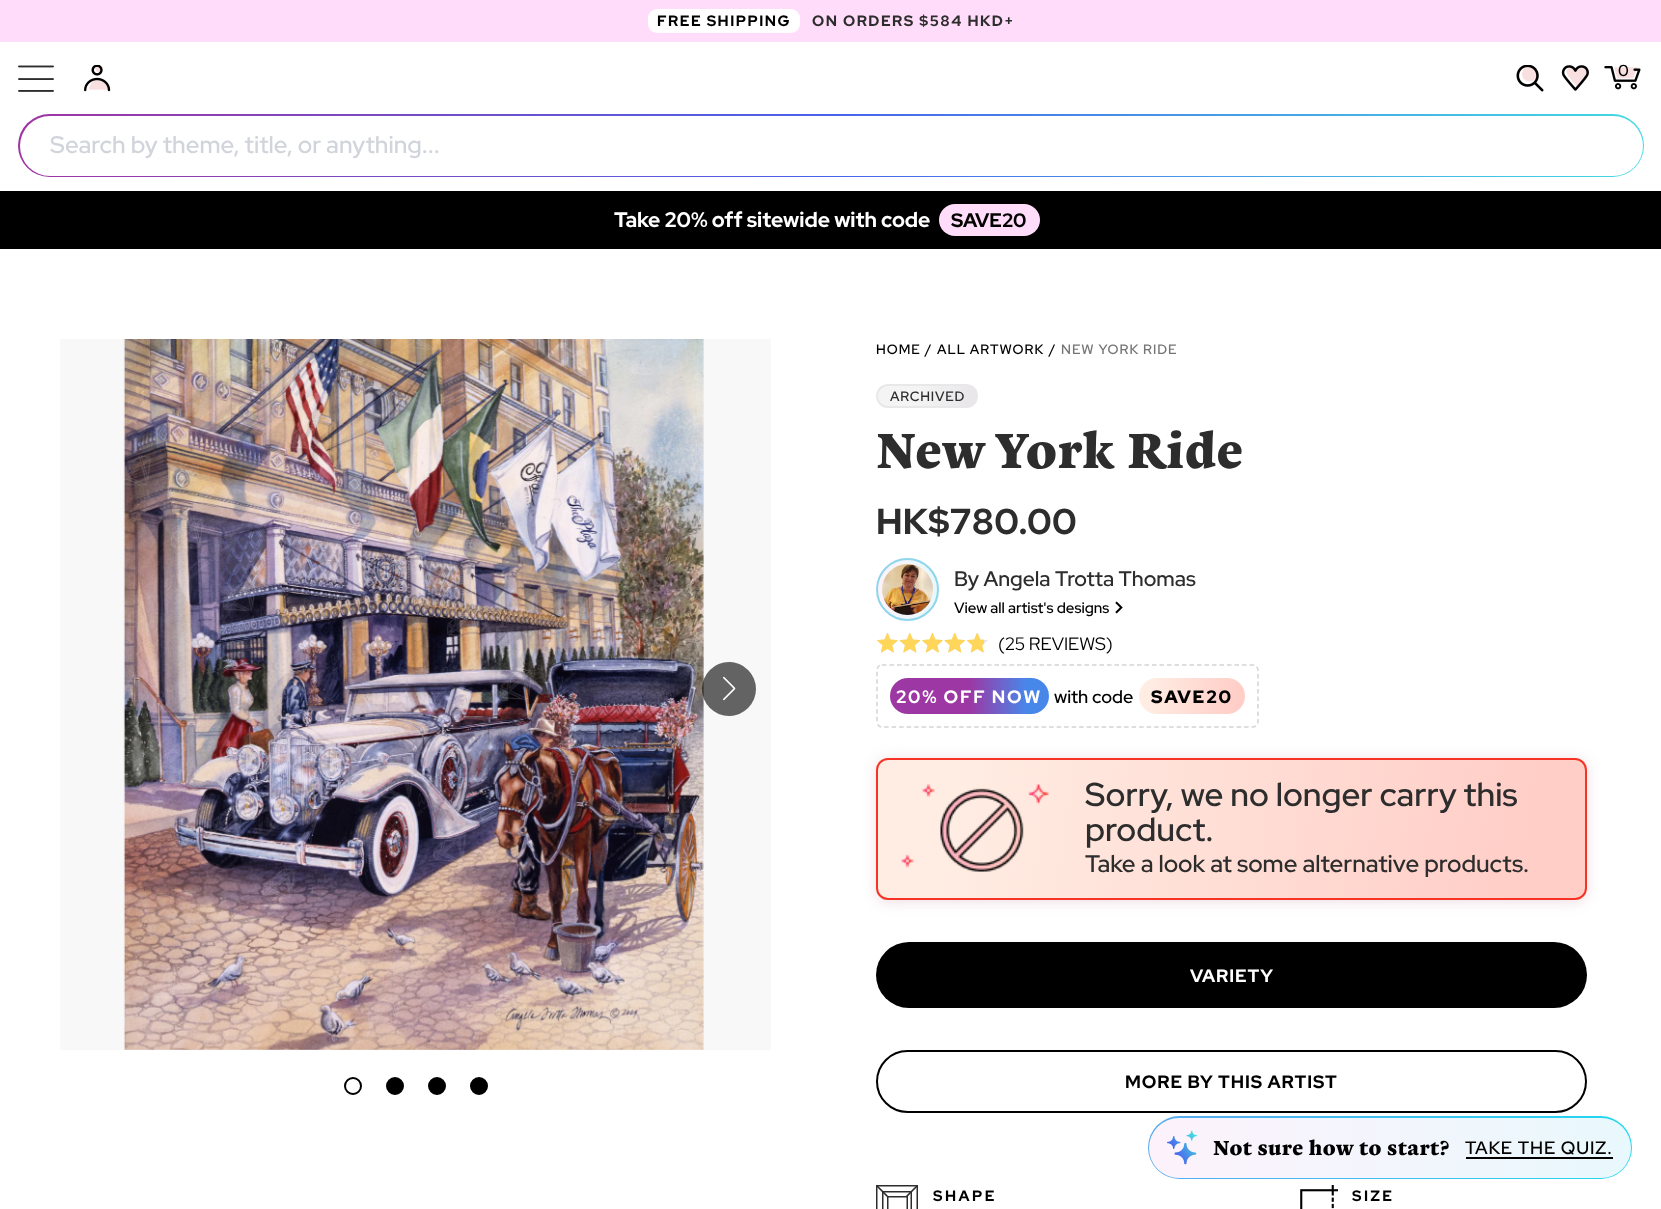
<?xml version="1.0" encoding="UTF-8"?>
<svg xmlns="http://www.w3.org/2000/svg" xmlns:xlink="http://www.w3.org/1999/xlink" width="1661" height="1209">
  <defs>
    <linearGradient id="g1" gradientUnits="userSpaceOnUse" x1="18" y1="146" x2="1644" y2="145"><stop offset="0" stop-color="#9f35a2" /><stop offset="0.5" stop-color="#4963ec" /><stop offset="1" stop-color="#43d9e2" /></linearGradient>
    <clipPath id="clip1"><rect x="876" y="384" width="102" height="24" rx="12" /></clipPath>
    <linearGradient id="g2" gradientUnits="userSpaceOnUse" x1="878" y1="385" x2="976" y2="407"><stop offset="0.41" stop-color="#f4f4f4" /><stop offset="0.91" stop-color="#e9e7ea" /></linearGradient>
    <clipPath id="clip2"><rect x="876" y="558" width="63" height="63" rx="31.5" /></clipPath>
    <linearGradient id="g3" gradientUnits="userSpaceOnUse" x1="878" y1="590" x2="938" y2="590"><stop offset="0" stop-color="#fdf2fc" /><stop offset="0.39" stop-color="#f4f5fc" /><stop offset="1" stop-color="#e6f9fc" /></linearGradient>
    <linearGradient id="g4" gradientUnits="userSpaceOnUse" x1="889" y1="696" x2="1049" y2="696"><stop offset="0.5" stop-color="#9d37a4" /><stop offset="0.86" stop-color="#4887ea" /></linearGradient>
    <linearGradient id="g5" gradientUnits="userSpaceOnUse" x1="1137" y1="688" x2="1246" y2="704"><stop offset="0.1" stop-color="#ffede3" /><stop offset="0.91" stop-color="#ffcec7" /></linearGradient>
    <clipPath id="clip3"><rect x="876" y="758" width="711" height="142" rx="12" /></clipPath>
    <linearGradient id="g6" gradientUnits="userSpaceOnUse" x1="875" y1="777" x2="1588" y2="880"><stop offset="0.1" stop-color="#ffede3" /><stop offset="0.91" stop-color="#ffcec7" /></linearGradient>
    <linearGradient id="g7" gradientUnits="userSpaceOnUse" x1="1148" y1="1148" x2="1632" y2="1148"><stop offset="0" stop-color="#5aa9ef" /><stop offset="1" stop-color="#23d8ee" /></linearGradient>
    <linearGradient id="g8" gradientUnits="userSpaceOnUse" x1="1149" y1="1148" x2="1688" y2="1148"><stop offset="0" stop-color="#fdf2fc" /><stop offset="0.39" stop-color="#f4f5fc" /><stop offset="1" stop-color="#e6f9fc" /></linearGradient>
  </defs>
  <rect width="100%" height="100%" fill="#ffffff" />
  <rect width="1661" height="42" fill="#ffdcf9" />
  <rect x="648" y="9" width="152" height="24" rx="9" fill="#ffffff" />
  <image x="18" y="65" width="36" height="27" xlink:href="image1.png" />
  <image x="84" y="65" width="27" height="27" xlink:href="image2.png" />
  <image x="1516" y="65" width="28" height="27" xlink:href="image3.png" />
  <image x="1561" y="65" width="28" height="26" xlink:href="image4.png" />
  <image x="1604" y="66" width="37" height="24" xlink:href="image5.png" />
  <rect x="18" y="114" width="1626" height="63" rx="31.5" fill="url(#g1)" />
  <rect x="20" y="116" width="1623" height="60" rx="30" fill="#ffffff" />
  <rect y="191" width="1661" height="58" fill="#000000" />
  <rect x="939" y="204" width="101" height="32" rx="16" fill="#ffdcf9" />
  <rect x="60" y="339" width="711" height="711" fill="#f8f8f8" />
  <image x="123" y="339" width="581" height="711" xlink:href="image6.png" />
  <circle cx="729" cy="689" r="27" fill="#000000" fill-opacity="0.6" />
  <image x="723" y="676" width="13" height="25" xlink:href="image7.png" />
  <circle cx="353" cy="1086" r="8" fill="none" stroke="#000000" stroke-width="2" />
  <circle cx="395" cy="1086" r="8" fill="#000000" stroke="#000000" stroke-width="2" />
  <circle cx="437" cy="1086" r="8" fill="#000000" stroke="#000000" stroke-width="2" />
  <circle cx="479" cy="1086" r="8" fill="#000000" stroke="#000000" stroke-width="2" />
  <g clip-path="url(#clip1)">
    <rect x="878" y="386" width="99" height="21" fill="url(#g2)" />
  </g>
  <rect x="877" y="385" width="100" height="22" rx="11" fill="none" stroke="#e8e7ea" stroke-width="2" />
  <g clip-path="url(#clip2)">
    <rect x="878" y="558" width="60" height="63" fill="url(#g3)" />
  </g>
  <circle cx="907.5" cy="589.5" r="30.5" fill="none" stroke="#8fd5eb" stroke-width="2" />
  <image x="882" y="564" width="51" height="51" xlink:href="image8.png" />
  <image x="1115" y="601" width="8" height="13" xlink:href="image9.png" />
  <image x="877" y="633" width="111" height="20" xlink:href="image10.png" />
  <image x="877" y="633" width="107" height="20" xlink:href="image11.png" />
  <path d="M 882 665 h 370.5 c 3 0 5.5 2.5 5.5 5.5 v 51 c 0 3 -2.5 5.5 -5.5 5.5 h -370.5 c -3 0 -5 -2.5 -5 -5.5 v -51 c 0 -3 2 -5.5 5 -5.5 z" fill="none" stroke="#d4d4d4" stroke-width="1.5" stroke-dasharray="4.5 3" />
  <rect x="890" y="678" width="159" height="36" rx="18" fill="url(#g4)" />
  <rect x="1139" y="678" width="106" height="36" rx="18" fill="url(#g5)" />
  <rect x="876" y="759" width="711" height="143" rx="12" fill="#d4adba" fill-opacity="0.4" filter="blur(7px)" />
  <g clip-path="url(#clip3)">
    <rect x="878" y="759" width="708" height="140" fill="url(#g6)" />
  </g>
  <rect x="877" y="759" width="709" height="140" rx="11" fill="none" stroke="#f73326" stroke-width="2" />
  <image x="901" y="784" width="148" height="88" xlink:href="image12.png" />
  <rect x="876" y="942" width="711" height="66" rx="33" fill="#000000" />
  <rect x="877" y="1051" width="709" height="61" rx="30.5" fill="none" stroke="#000000" stroke-width="2" />
  <image x="876" y="1185" width="42" height="24" xlink:href="image13.png" />
  <image x="1300" y="1185" width="38" height="24" xlink:href="image14.png" />
  <rect x="1148" y="1116" width="484" height="63" rx="31.5" fill="url(#g7)" />
  <rect x="1149" y="1118" width="482" height="60" rx="30" fill="url(#g8)" />
  <image x="1167" y="1130" width="30" height="35" xlink:href="image15.png" />
  <rect x="1466" y="1157" width="147" height="2" fill="#000000" />
  <text x="657" y="26" style="font-family: Red Hat Display; font-size: 15px; font-weight: bold; letter-spacing: 1.5px; fill: #000000">FREE SHIPPING</text>
  <text x="812" y="26" style="font-family: Red Hat Display; font-size: 15px; font-weight: bold; letter-spacing: 1.5px; fill: #2d2d2d">ON ORDERS $584 HKD+</text>
  <text x="1618" y="76" style="font-family: Red Hat Display; font-size: 16px; font-weight: 500; fill: #000000">0</text>
  <text x="50" y="153" style="font-family: Red Hat Display; font-size: 24px; font-weight: 500; fill: #d1d5db">Search by theme, title, or anything...</text>
  <text x="614" y="227" style="font-family: Red Hat Display; font-size: 21px; font-weight: bold; fill: #ffffff">Take 20% off sitewide with code</text>
  <text x="951" y="227" style="font-family: Red Hat Display; font-size: 19.5px; font-weight: bold; fill: #000000">SAVE20</text>
  <text x="876" y="354" style="font-family: Red Hat Display; font-size: 13.5px; font-weight: 500; letter-spacing: 1px; fill: #000000">HOME</text>
  <text x="925" y="354" style="font-family: Red Hat Display; font-size: 13.5px; font-weight: 500; letter-spacing: 1px; fill: #000000">/</text>
  <text x="937" y="354" style="font-family: Red Hat Display; font-size: 13.5px; font-weight: 500; letter-spacing: 1px; fill: #000000">ALL ARTWORK</text>
  <text x="1049" y="354" style="font-family: Red Hat Display; font-size: 13.5px; font-weight: 500; letter-spacing: 1px; fill: #000000">/</text>
  <text x="1061" y="354" style="font-family: Red Hat Display; font-size: 13.5px; font-weight: 500; letter-spacing: 1px; fill: #757575">NEW YORK RIDE</text>
  <text x="890" y="401" style="font-family: Red Hat Display; font-size: 13.5px; font-weight: 500; letter-spacing: 0.75px; fill: #2d2d2d">ARCHIVED</text>
  <text x="876" y="468" style="font-family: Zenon; font-size: 51px; font-weight: bold; letter-spacing: 0.4px; fill: #2d2d2d">New York Ride</text>
  <text x="876" y="534" style="font-family: Red Hat Display; font-size: 36px; font-weight: bold; letter-spacing: 0.25px; fill: #2d2d2d">HK$780.00</text>
  <text x="954" y="586" style="font-family: Red Hat Display; font-size: 21px; font-weight: 500; fill: #2d2d2d">By Angela Trotta Thomas</text>
  <text x="954" y="613" style="font-family: Red Hat Display; font-size: 15px; font-weight: 500; fill: #000000">View all artist's designs</text>
  <text x="998" y="650" style="font-family: Red Hat Display; font-size: 18px; fill: #000000">(25 REVIEWS)</text>
  <text x="896" y="703" style="font-family: Red Hat Display; font-size: 18px; font-weight: bold; letter-spacing: 1.75px; fill: #ffffff">20% OFF NOW</text>
  <text x="1054" y="703" style="font-family: Red Hat Display; font-size: 18px; font-weight: 500; fill: #000000">with code</text>
  <text x="1151" y="703" style="font-family: Red Hat Display; font-size: 18px; font-weight: 900; letter-spacing: 1.75px; fill: #000000">SAVE20</text>
  <text x="1085" y="806" style="font-family: Red Hat Display; font-size: 33px; font-weight: 500; fill: #2d2d2d">Sorry, we no longer carry this</text>
  <text x="1085" y="841" style="font-family: Red Hat Display; font-size: 33px; font-weight: 500; fill: #2d2d2d">product.</text>
  <text x="1085" y="872" style="font-family: Red Hat Display; font-size: 24px; font-weight: 500; fill: #2d2d2d">Take a look at some alternative products.</text>
  <text x="1190" y="982" style="font-family: Red Hat Display; font-size: 18px; font-weight: bold; letter-spacing: 0.9px; fill: #ffffff">VARIETY</text>
  <text x="1125" y="1088" style="font-family: Red Hat Display; font-size: 18px; font-weight: bold; letter-spacing: 0.9px; fill: #000000">MORE BY THIS ARTIST</text>
  <text x="933" y="1201" style="font-family: Red Hat Display; font-size: 15px; font-weight: bold; letter-spacing: 2.5px; fill: #000000">SHAPE</text>
  <text x="1352" y="1201" style="font-family: Red Hat Display; font-size: 15px; font-weight: bold; letter-spacing: 2.5px; fill: #000000">SIZE</text>
  <text x="1213" y="1155" style="font-family: Zenon; font-size: 21px; font-weight: bold; letter-spacing: 0.4px; fill: #000000">Not sure how to start?</text>
  <text x="1465" y="1154" style="font-family: Red Hat Display; font-size: 18px; font-weight: 600; letter-spacing: 0.9px; fill: #000000">TAKE THE QUIZ.</text>
</svg>
